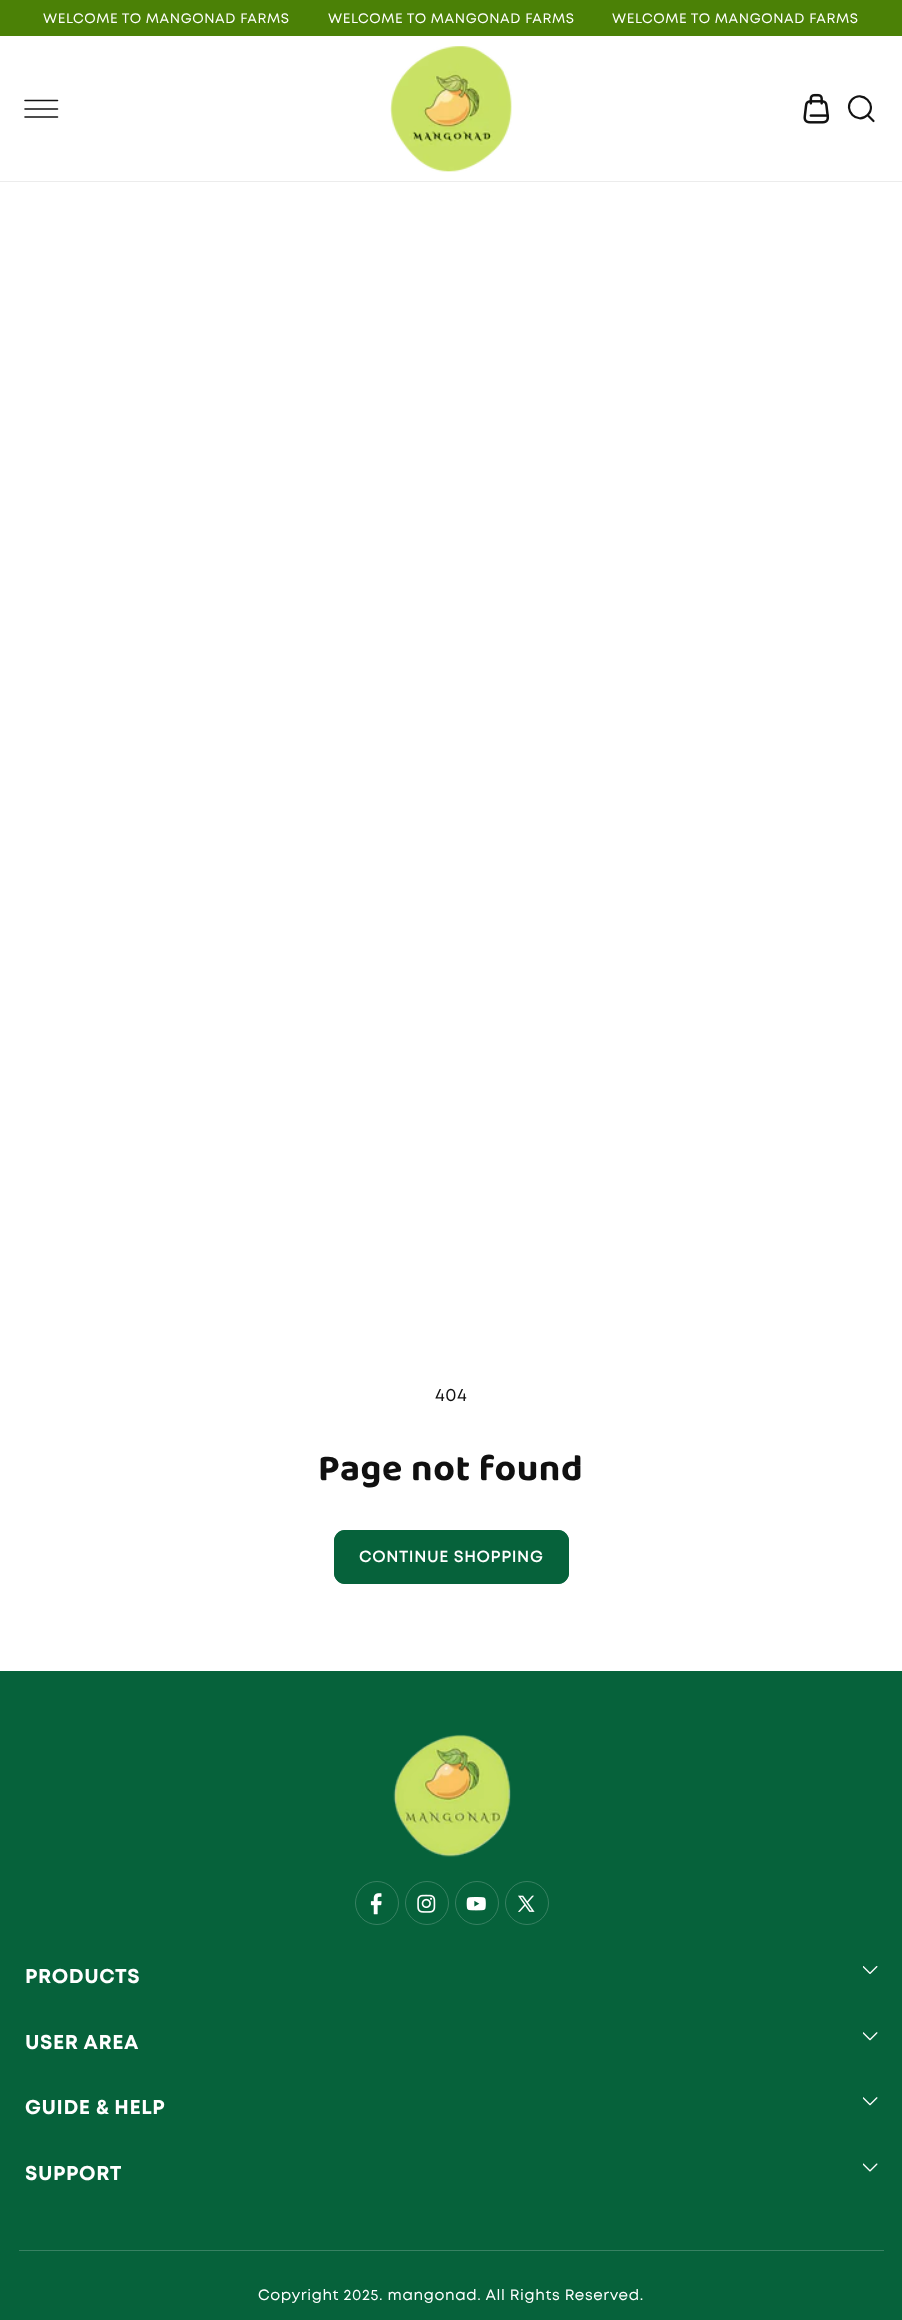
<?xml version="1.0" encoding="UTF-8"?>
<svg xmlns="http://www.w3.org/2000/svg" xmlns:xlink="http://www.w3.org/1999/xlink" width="902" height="2320">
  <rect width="100%" height="100%" fill="#ffffff" />
  <rect width="902" height="36" fill="#4b8106" />
  <rect y="181" width="902" height="1" fill="#ececec" />
  <path d="M 25 100.5 h 32.5 m -32.5 8.5 h 32.5 m -32.5 8 h 32.5" fill="none" stroke="#121212" stroke-width="1.6" stroke-linecap="round" stroke-linejoin="round" />
  <image x="390" y="46" width="122" height="126" xlink:href="image1.png" />
  <image x="803" y="93" width="27" height="31" xlink:href="image2.png" />
  <path d="M 873.5 121 l -6 -6 m 0 0 c 10.5 -10 -5.5 -25.5 -15.5 -15.5 c -9.5 10.5 5.5 25.5 15.5 15.5 z" fill="none" stroke="#121212" stroke-width="2.2" stroke-linecap="round" stroke-linejoin="round" />
  <rect x="334" y="1530" width="235" height="54" rx="11" fill="#06623b" />
  <rect x="334.5" y="1530.5" width="234" height="53" rx="10.5" fill="none" stroke="#06623b" />
  <rect y="1671" width="902" height="649" fill="#06623b" />
  <image x="393" y="1734" width="118" height="123" xlink:href="image3.png" />
  <circle cx="377" cy="1903" r="21.5" fill="none" stroke="#388162" />
  <image x="370" y="1893" width="12" height="22" xlink:href="image4.png" />
  <circle cx="427" cy="1903" r="21.5" fill="none" stroke="#388162" />
  <image x="417" y="1894" width="19" height="19" xlink:href="image5.png" />
  <circle cx="477" cy="1903" r="21.5" fill="none" stroke="#388162" />
  <image x="466" y="1897" width="20" height="14" xlink:href="image6.png" />
  <circle cx="527" cy="1903" r="21.5" fill="none" stroke="#388162" />
  <image x="518" y="1895" width="17" height="17" xlink:href="image7.png" />
  <image x="863" y="1966" width="15" height="8" xlink:href="image8.png" />
  <image x="863" y="2032" width="15" height="9" xlink:href="image9.png" />
  <image x="863" y="2097" width="15" height="9" xlink:href="image9.png" />
  <image x="863" y="2163" width="15" height="9" xlink:href="image10.png" />
  <rect x="19" y="2250" width="865" height="1" fill="#388162" />
  <text x="43" y="23" style="font-family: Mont; font-size: 13.75px; letter-spacing: 0.6px; fill: #ffffff">WELCOME TO MANGONAD FARMS</text>
  <text x="328" y="23" style="font-family: Mont; font-size: 13.75px; letter-spacing: 0.6px; fill: #ffffff">WELCOME TO MANGONAD FARMS</text>
  <text x="612" y="23" style="font-family: Mont; font-size: 13.75px; letter-spacing: 0.6px; fill: #ffffff">WELCOME TO MANGONAD FARMS</text>
  <text x="435" y="1401" style="font-family: Mont; font-size: 18px; letter-spacing: 0.6px; fill: #101010">404</text>
  <text x="318" y="1480" style="font-family: 'Baloo 2'; font-size: 37.5px; font-weight: bold; letter-spacing: 0.6px; fill: #101010">Page not found</text>
  <text x="359" y="1562" style="font-family: Mont; font-size: 16.25px; font-weight: 600; letter-spacing: 0.6px; fill: #ffffff">CONTINUE SHOPPING</text>
  <text x="25" y="1983" style="font-family: Mont; font-size: 20px; font-weight: bold; letter-spacing: 0.6px; fill: #ffffff">PRODUCTS</text>
  <text x="25" y="2049" style="font-family: Mont; font-size: 20px; font-weight: bold; letter-spacing: 0.6px; fill: #ffffff">USER AREA</text>
  <text x="25" y="2114" style="font-family: Mont; font-size: 20px; font-weight: bold; letter-spacing: 0.6px; fill: #ffffff">GUIDE &amp; HELP</text>
  <text x="25" y="2180" style="font-family: Mont; font-size: 20px; font-weight: bold; letter-spacing: 0.6px; fill: #ffffff">SUPPORT</text>
  <text x="258" y="2300" style="font-family: Mont; font-size: 15px; letter-spacing: 0.6px; fill: #ffffff">Copyright 2025. mangonad. All Rights Reserved.</text>
</svg>
